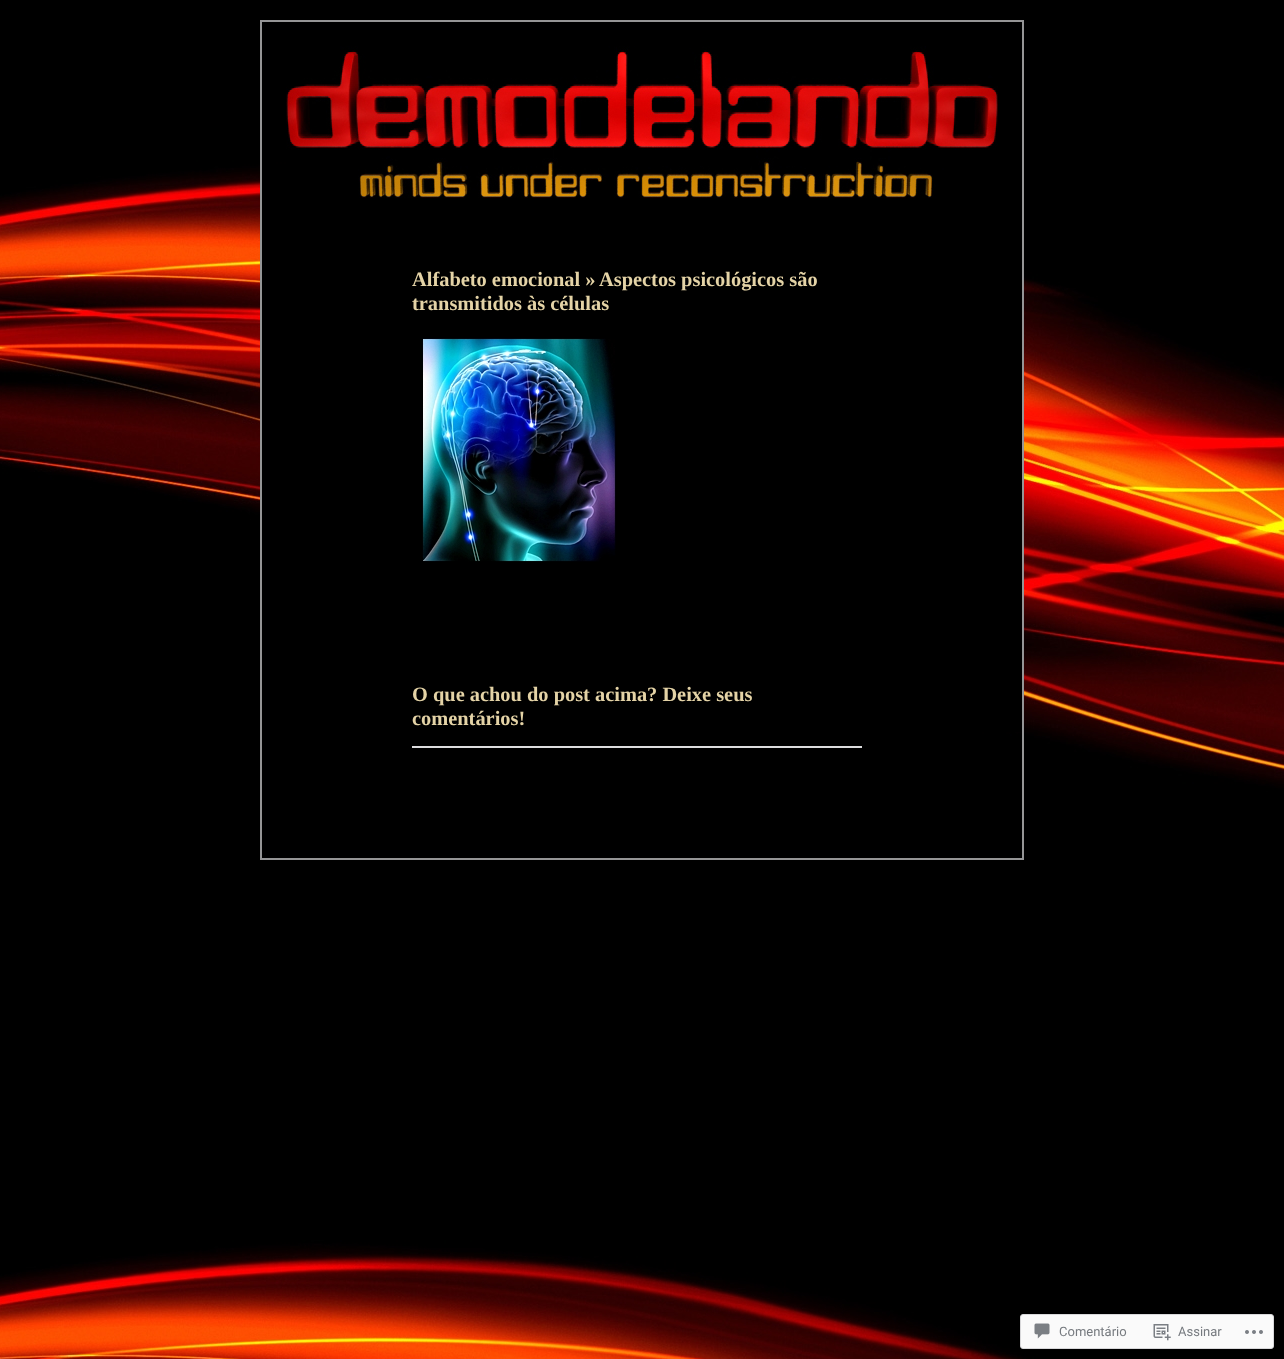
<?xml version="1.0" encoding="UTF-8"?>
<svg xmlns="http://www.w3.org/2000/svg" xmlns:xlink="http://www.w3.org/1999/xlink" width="1284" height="1359">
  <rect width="100%" height="100%" fill="#ffffff" />
  <image x="0" y="0" width="1284" height="1359" xlink:href="image1.png" />
  <rect x="262" y="164" width="760" height="568" fill="#000000" />
  <rect x="261" y="21" width="762" height="838" fill="none" stroke="#959596" stroke-width="2" />
  <image x="286" y="46" width="712" height="152" xlink:href="image2.png" />
  <image x="422" y="338" width="194" height="224" xlink:href="image3.png" />
  <rect x="412" y="746" width="450" height="2" fill="#dcdcde" />
  <rect x="1020.5" y="1314.5" width="253" height="34" rx="2.5" fill="#fafafa" stroke="#d8d8da" />
  <image x="1034" y="1323" width="16" height="16" xlink:href="image4.png" />
  <image x="1153" y="1324" width="18" height="17" xlink:href="image5.png" />
  <image x="1245" y="1330" width="18" height="4" xlink:href="image6.png" />
  <text x="412" y="286" style="font-family: Liberation Serif; font-size: 20.4px; font-weight: bold; fill: #e4d3a6">Alfabeto emocional »</text>
  <text x="599" y="286" style="font-family: Liberation Serif; font-size: 20.4px; font-weight: bold; fill: #e4d3a6">Aspectos psicológicos são</text>
  <text x="412" y="310" style="font-family: Liberation Serif; font-size: 20.4px; font-weight: bold; fill: #e4d3a6">transmitidos às células</text>
  <text x="412" y="701" style="font-family: Liberation Serif; font-size: 20.4px; font-weight: bold; fill: #e4d3a6">O que achou do post acima? Deixe seus</text>
  <text x="412" y="725" style="font-family: Liberation Serif; font-size: 20.4px; font-weight: bold; fill: #e4d3a6">comentários!</text>
  <text x="1059" y="1336" style="font-family: Roboto; font-size: 13px; fill: #767a7f">Comentário</text>
  <text x="1178" y="1336" style="font-family: Roboto; font-size: 13px; fill: #767a7f">Assinar</text>
</svg>
